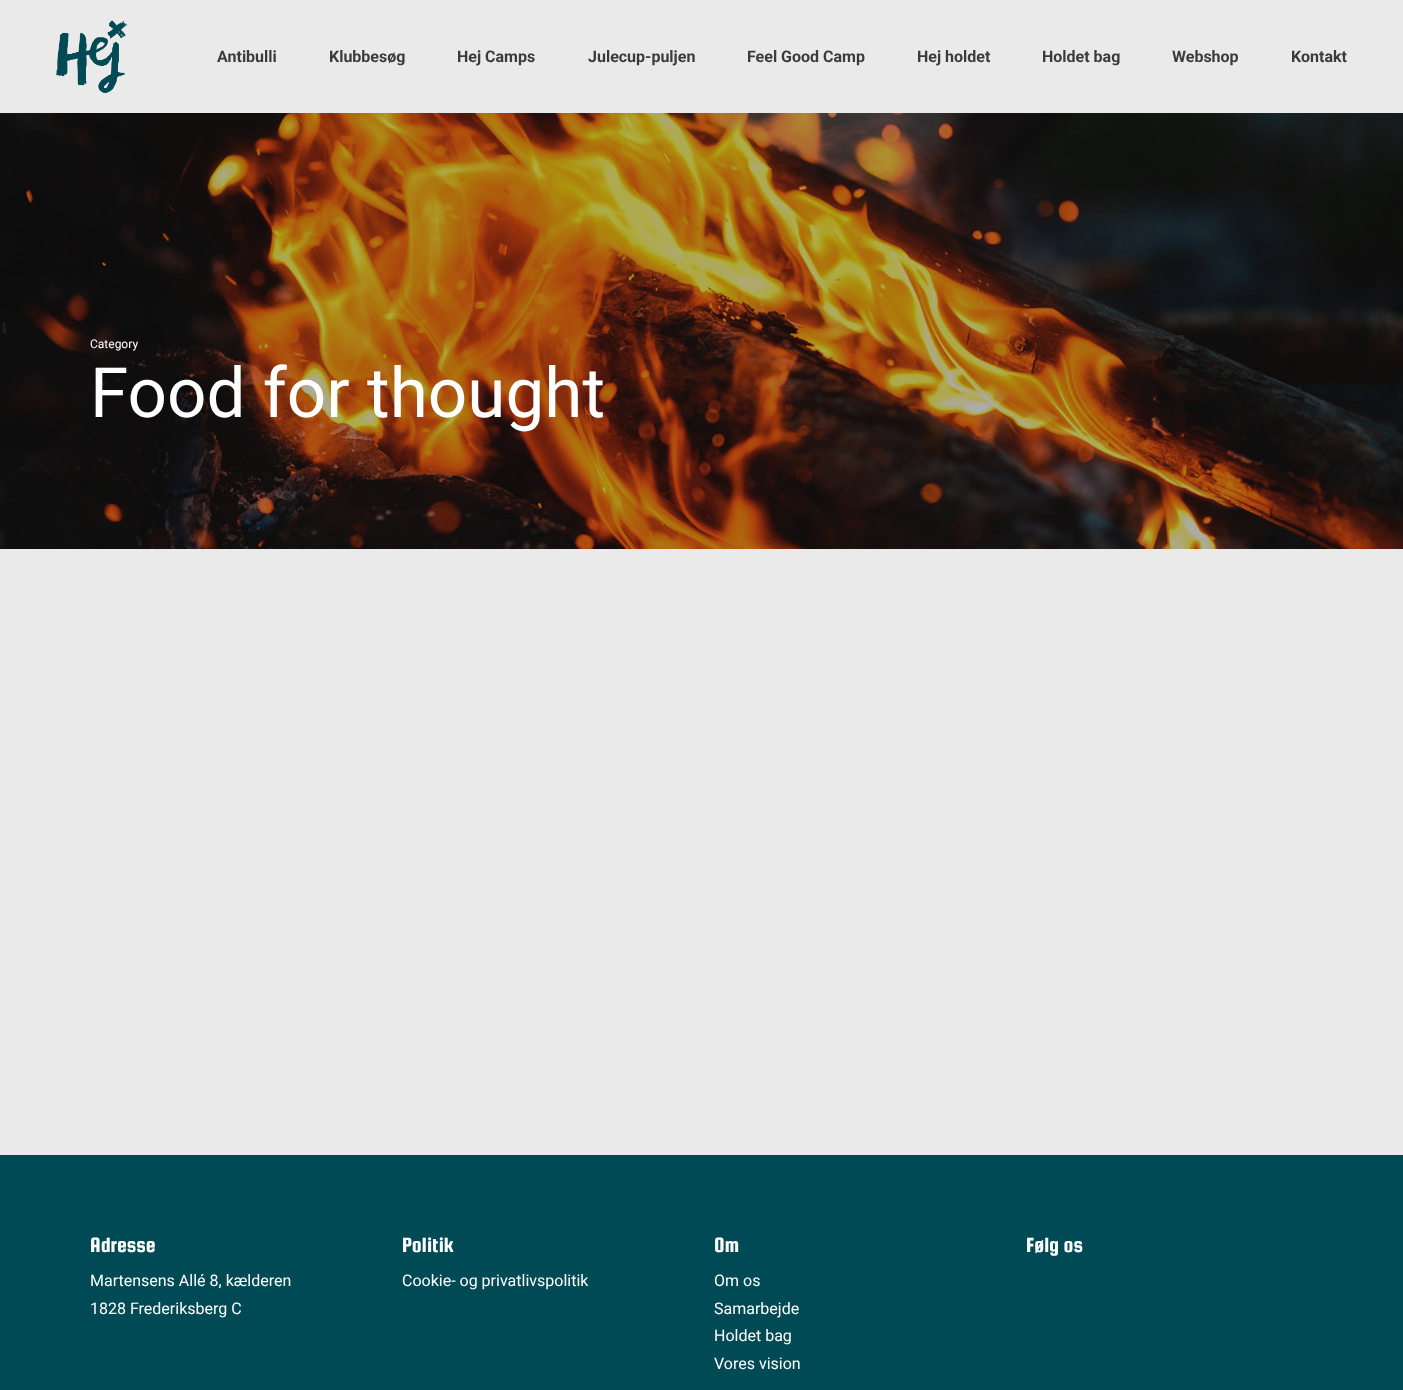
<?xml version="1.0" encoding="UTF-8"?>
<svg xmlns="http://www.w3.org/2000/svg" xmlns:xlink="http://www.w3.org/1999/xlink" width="1403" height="1390">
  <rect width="100%" height="100%" fill="#eaeaea" />
  <image x="56" y="20" width="71" height="73" xlink:href="image1.png" />
  <image x="0" y="113" width="1403" height="436" xlink:href="image2.png" />
  <rect y="1155" width="1403" height="235" fill="#004a55" />
  <text x="217" y="62" style="font-family: Roboto; font-size: 16px; font-weight: bold; fill: #3b3b3b">Antibulli</text>
  <text x="329" y="62" style="font-family: Roboto; font-size: 16px; font-weight: bold; fill: #3b3b3b">Klubbesøg</text>
  <text x="457" y="62" style="font-family: Roboto; font-size: 16px; font-weight: bold; fill: #3b3b3b">Hej Camps</text>
  <text x="588" y="62" style="font-family: Roboto; font-size: 16px; font-weight: bold; fill: #3b3b3b">Julecup-puljen</text>
  <text x="747" y="62" style="font-family: Roboto; font-size: 16px; font-weight: bold; fill: #3b3b3b">Feel Good Camp</text>
  <text x="917" y="62" style="font-family: Roboto; font-size: 16px; font-weight: bold; fill: #3b3b3b">Hej holdet</text>
  <text x="1042" y="62" style="font-family: Roboto; font-size: 16px; font-weight: bold; fill: #3b3b3b">Holdet bag</text>
  <text x="1172" y="62" style="font-family: Roboto; font-size: 16px; font-weight: bold; fill: #3b3b3b">Webshop</text>
  <text x="1291" y="62" style="font-family: Roboto; font-size: 16px; font-weight: bold; fill: #3b3b3b">Kontakt</text>
  <text x="90" y="348" style="font-family: Roboto; font-size: 12px; fill: #ffffff">Category</text>
  <text x="90" y="417" style="font-family: Roboto; font-size: 69.25px; fill: #ffffff">Food for thought</text>
  <text x="90" y="1252" style="font-family: Squada One; font-size: 22px; fill: #ffffff">Adresse</text>
  <text x="90" y="1286" style="font-family: Roboto; font-size: 16px; fill: #ffffff">Martensens Allé 8, kælderen</text>
  <text x="90" y="1314" style="font-family: Roboto; font-size: 16px; fill: #ffffff">1828 Frederiksberg C</text>
  <text x="402" y="1252" style="font-family: Squada One; font-size: 22px; fill: #ffffff">Politik</text>
  <text x="402" y="1286" style="font-family: Roboto; font-size: 16px; fill: #ffffff">Cookie- og privatlivspolitik</text>
  <text x="714" y="1252" style="font-family: Squada One; font-size: 22px; fill: #ffffff">Om</text>
  <text x="714" y="1286" style="font-family: Roboto; font-size: 16px; fill: #ffffff">Om os</text>
  <text x="714" y="1314" style="font-family: Roboto; font-size: 16px; fill: #ffffff">Samarbejde</text>
  <text x="714" y="1341" style="font-family: Roboto; font-size: 16px; fill: #ffffff">Holdet bag</text>
  <text x="714" y="1369" style="font-family: Roboto; font-size: 16px; fill: #ffffff">Vores vision</text>
  <text x="1026" y="1252" style="font-family: Squada One; font-size: 22px; fill: #ffffff">Følg os</text>
</svg>
